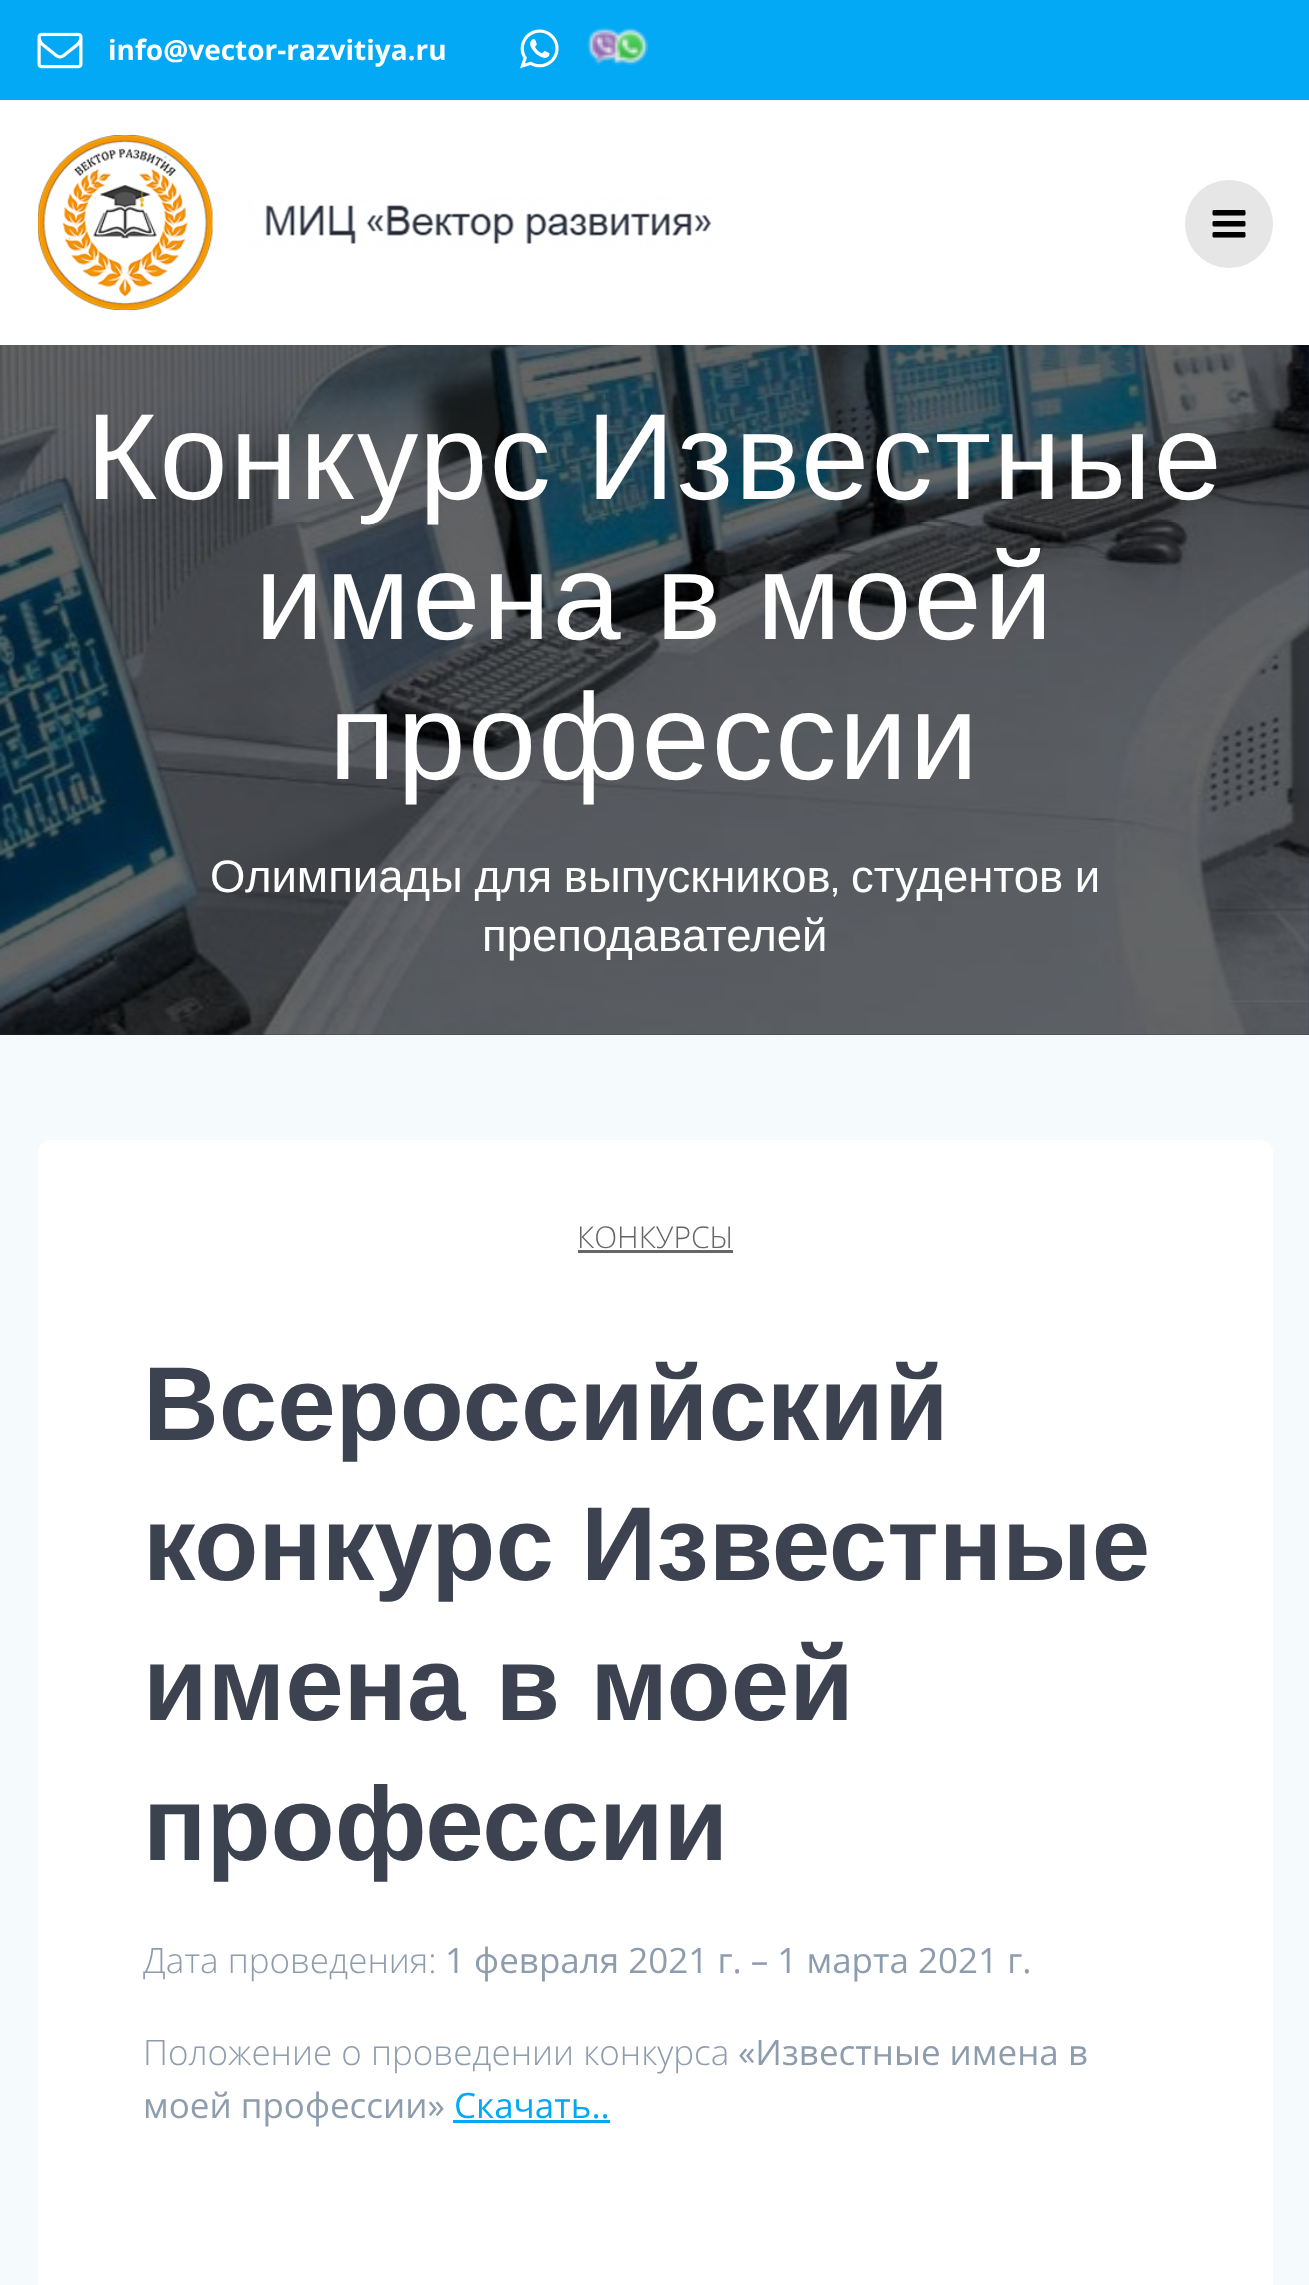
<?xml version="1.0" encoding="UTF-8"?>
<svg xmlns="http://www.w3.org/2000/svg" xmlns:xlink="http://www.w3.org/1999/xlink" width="1309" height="2285">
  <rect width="100%" height="100%" fill="#2a2e57" />
  <rect width="1309" height="100" fill="#03a9f4" />
  <image x="37" y="32" width="46" height="37" xlink:href="image1.png" />
  <image x="520" y="29" width="39" height="40" xlink:href="image2.png" />
  <image x="587" y="27" width="62" height="38" xlink:href="image3.png" />
  <rect y="100" width="1309" height="245" fill="#ffffff" />
  <image x="38" y="135" width="674" height="175" xlink:href="image4.png" />
  <circle cx="1229" cy="224" r="44" fill="#e6e6e6" />
  <image x="1212" y="210" width="34" height="28" xlink:href="image5.png" />
  <image x="0" y="345" width="1309" height="690" xlink:href="image6.png" />
  <rect y="1035" width="1309" height="1250" fill="#f5fafd" />
  <rect x="38" y="1140" width="1235" height="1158" rx="13" fill="#ffffff" />
  <rect x="578" y="1250" width="155" height="3" fill="#666666" />
  <rect x="453" y="2120" width="157" height="3" fill="#03a9f4" />
  <text x="108" y="60" style="font-family: Open Sans; font-size: 28px; font-weight: bold; fill: #ffffff">info@vector-razvitiya.ru</text>
  <text x="86" y="499" word-spacing="-3" style="font-family: Liberation Sans; font-size: 122.5px; letter-spacing: 2.25px; fill: #ffffff">Конкурс Известные</text>
  <text x="255" y="639" word-spacing="-3" style="font-family: Liberation Sans; font-size: 122.5px; letter-spacing: 2.25px; fill: #ffffff">имена в моей</text>
  <text x="329" y="779" style="font-family: Liberation Sans; font-size: 122.5px; letter-spacing: 2.25px; fill: #ffffff">профессии</text>
  <text x="210" y="892" word-spacing="-1" style="font-family: Liberation Sans; font-size: 45.5px; fill: #ffffff">Олимпиады для выпускников</text>
  <text x="830" y="892" style="font-family: Muli; font-size: 45.5px; font-weight: 300; fill: #ffffff">,</text>
  <text x="851" y="892" word-spacing="-1" style="font-family: Liberation Sans; font-size: 45.5px; fill: #ffffff">студентов и</text>
  <text x="482" y="951" style="font-family: Liberation Sans; font-size: 45.5px; fill: #ffffff">преподавателей</text>
  <text x="577" y="1248" style="font-family: Open Sans; font-size: 30px; font-weight: 300; fill: #666666">КОНКУРСЫ</text>
  <text x="143" y="1440" style="font-family: Liberation Sans; font-size: 105px; font-weight: bold; fill: #3c424f">Всероссийский</text>
  <text x="143" y="1580" style="font-family: Liberation Sans; font-size: 105px; font-weight: bold; fill: #3c424f">конкурс</text>
  <text x="581" y="1580" style="font-family: Liberation Sans; font-size: 105px; font-weight: bold; fill: #3c424f">Известные</text>
  <text x="143" y="1720" word-spacing="1" style="font-family: Liberation Sans; font-size: 105px; font-weight: bold; fill: #3c424f">имена в моей</text>
  <text x="143" y="1860" style="font-family: Liberation Sans; font-size: 105px; font-weight: bold; fill: #3c424f">профессии</text>
  <text x="143" y="1973" style="font-family: Open Sans; font-size: 35px; font-weight: 300; fill: #8e9dae">Дата проведения:</text>
  <text x="445" y="1973" style="font-family: Open Sans; font-size: 35px; fill: #8e9dae">1 февраля 2021 г. – 1 марта 2021 г.</text>
  <text x="143" y="2065" style="font-family: Open Sans; font-size: 35px; font-weight: 300; fill: #8e9dae">Положение о проведении конкурса</text>
  <text x="738" y="2065" style="font-family: Open Sans; font-size: 35px; fill: #8e9dae">«Известные имена в</text>
  <text x="143" y="2118" style="font-family: Open Sans; font-size: 35px; fill: #8e9dae">моей профессии»</text>
  <text x="454" y="2118" style="font-family: Open Sans; font-size: 35px; fill: #03a9f4">Скачать..</text>
</svg>
